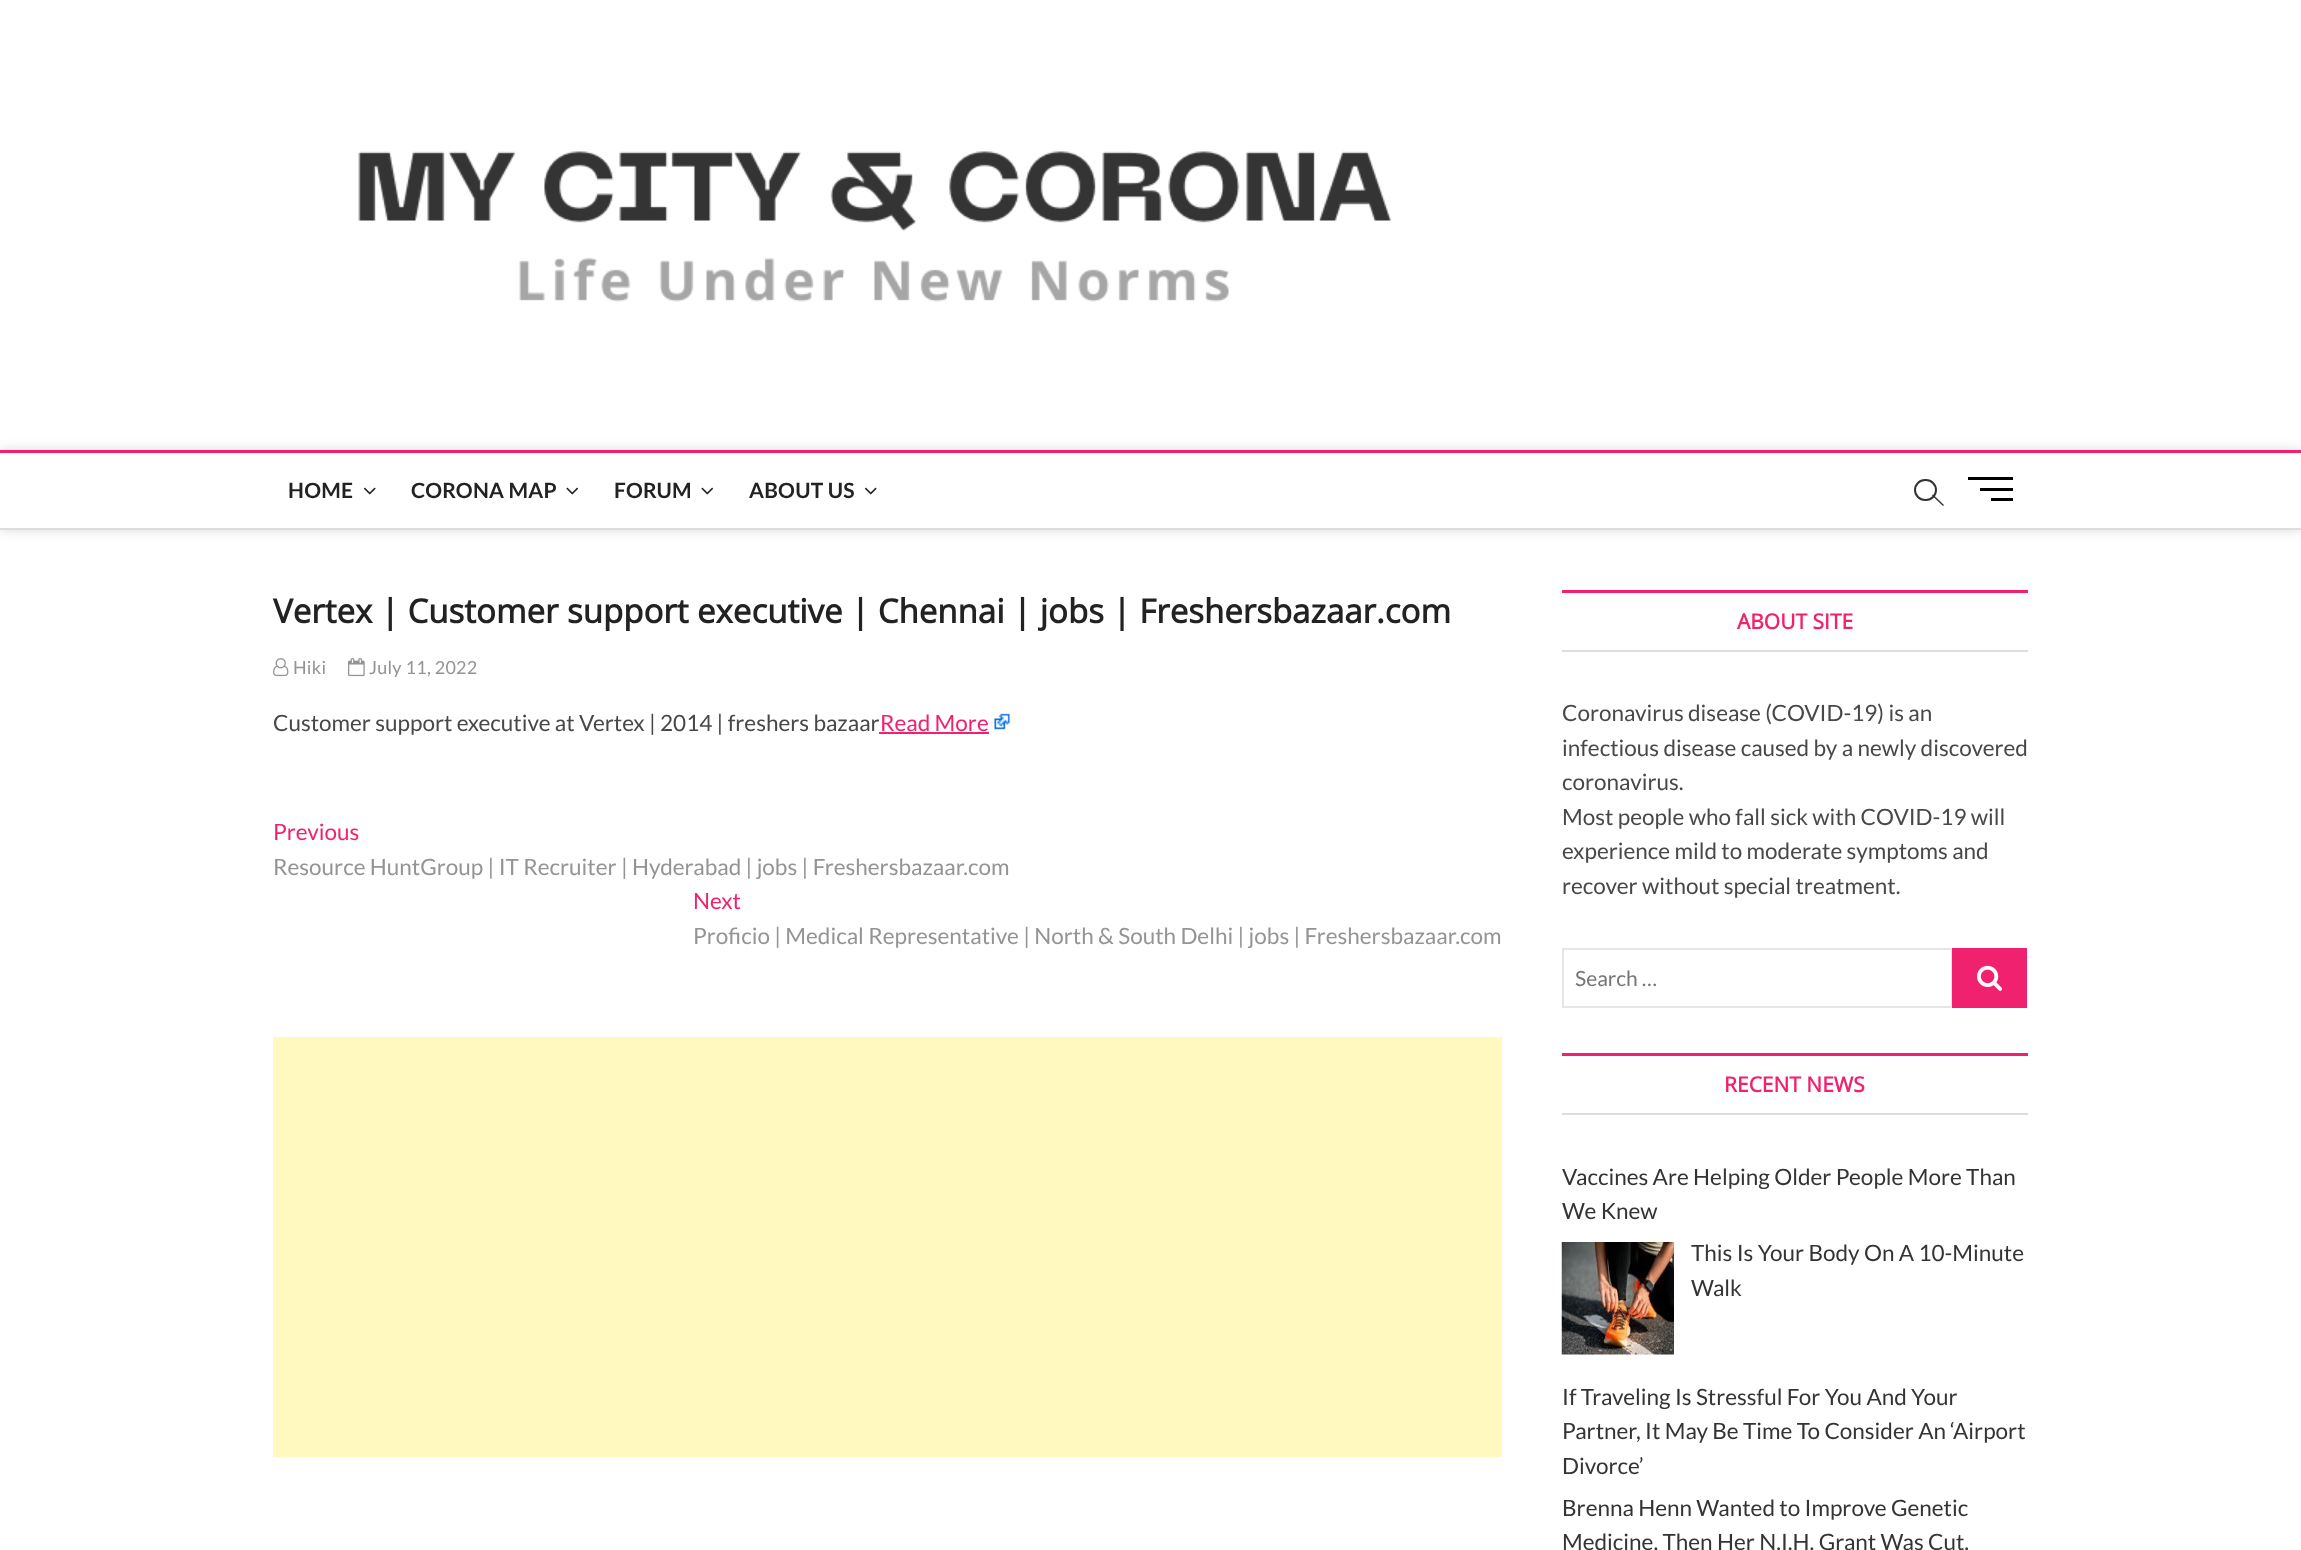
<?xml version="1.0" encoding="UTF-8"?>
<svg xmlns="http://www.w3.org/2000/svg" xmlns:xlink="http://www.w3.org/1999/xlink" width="2301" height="1550">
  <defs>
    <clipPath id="clip1"><path d="M 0 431 h 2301 v 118 h -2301 z m 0 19 h 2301 v 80 h -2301 z" clip-rule="evenodd" /></clipPath>
  </defs>
  <rect width="100%" height="100%" fill="#ffffff" />
  <image x="358" y="151" width="1033" height="151" xlink:href="image1.png" />
  <g clip-path="url(#clip1)">
    <rect y="450" width="2301" height="80" fill="#000000" fill-opacity="0.15" filter="blur(6px)" />
  </g>
  <rect y="450" width="2301" height="3" fill="#f0216f" />
  <rect y="528" width="2301" height="2" fill="#dddddd" />
  <image x="363" y="487" width="13" height="8" xlink:href="image2.png" />
  <image x="566" y="487" width="13" height="8" xlink:href="image3.png" />
  <image x="701" y="487" width="13" height="8" xlink:href="image3.png" />
  <image x="864" y="487" width="13" height="8" xlink:href="image2.png" />
  <rect x="1915" y="480" width="21" height="20" rx="10" fill="none" stroke="#333333" stroke-width="2" />
  <path d="M 1932 495.5 l 1 -1 l 11 10.5 l -1 1 z" fill="#333333" />
  <rect x="1980" y="488" width="33" height="3" fill="#000000" />
  <rect x="1968" y="477" width="45" height="3" fill="#000000" />
  <rect x="1991" y="498" width="22" height="3" fill="#000000" />
  <image x="273" y="658" width="16" height="19" xlink:href="image4.png" />
  <image x="348" y="658" width="17" height="19" xlink:href="image5.png" />
  <image x="994" y="713" width="16" height="17" xlink:href="image6.png" />
  <rect x="273" y="1037" width="1229" height="420" fill="#fff9c0" />
  <rect x="1562" y="590" width="466" height="3" fill="#f0216f" />
  <rect x="1562" y="650" width="466" height="2" fill="#dddddd" />
  <rect x="1563" y="949" width="389" height="58" fill="none" stroke="#e6e6e6" stroke-width="2" />
  <rect x="1952" y="948" width="75" height="60" fill="#f0216f" />
  <image x="1977" y="965" width="25" height="26" xlink:href="image7.png" />
  <rect x="1562" y="1053" width="466" height="3" fill="#f0216f" />
  <rect x="1562" y="1113" width="466" height="2" fill="#dddddd" />
  <image x="1561" y="1242" width="113" height="113" xlink:href="image8.png" />
  <text x="288" y="498" style="font-family: Lato; font-size: 21px; font-weight: bold; letter-spacing: 0.25px; fill: #222222">HOME</text>
  <text x="411" y="498" style="font-family: Lato; font-size: 21px; font-weight: bold; letter-spacing: 0.25px; fill: #222222">CORONA MAP</text>
  <text x="614" y="498" style="font-family: Lato; font-size: 21px; font-weight: bold; letter-spacing: 0.25px; fill: #222222">FORUM</text>
  <text x="749" y="498" style="font-family: Lato; font-size: 21px; font-weight: bold; letter-spacing: 0.25px; fill: #222222">ABOUT US</text>
  <text x="273" y="623" style="font-family: Open Sans; font-size: 33px; font-weight: bold; fill: #222222">Vertex | Customer support executive | Chennai | jobs | Freshersbazaar.com</text>
  <text x="293" y="674" style="font-family: Lato; font-size: 18px; letter-spacing: 0.25px; fill: #949494">Hiki</text>
  <text x="369" y="674" style="font-family: Lato; font-size: 18px; letter-spacing: 0.25px; fill: #949494">July 11, 2022</text>
  <text x="273" y="731" style="font-family: Lato; font-size: 22.5px; fill: #484848">Customer support executive at Vertex | 2014 | freshers bazaar</text>
  <text x="880" y="731" style="font-family: Lato; font-size: 22.5px; fill: #f0216f">Read More</text>
  <rect x="879" y="732" width="110" height="2" fill="#f0216f" />
  <text x="273" y="840" style="font-family: Lato; font-size: 22.5px; fill: #f0216f">Previous</text>
  <text x="273" y="875" style="font-family: Lato; font-size: 22.5px; fill: #949494">Resource HuntGroup | IT Recruiter | Hyderabad | jobs | Freshersbazaar.com</text>
  <text x="693" y="909" style="font-family: Lato; font-size: 22.5px; fill: #f0216f">Next</text>
  <text x="693" y="944" style="font-family: Lato; font-size: 22.5px; fill: #949494">Proficio | Medical Representative | North &amp; South Delhi | jobs | Freshersbazaar.com</text>
  <text x="1737" y="629" style="font-family: Open Sans; font-size: 21px; font-weight: bold; fill: #f0216f">ABOUT SITE</text>
  <text x="1562" y="721" style="font-family: Lato; font-size: 22.5px; fill: #484848">Coronavirus disease (COVID-19) is an</text>
  <text x="1562" y="756" style="font-family: Lato; font-size: 22.5px; fill: #484848">infectious disease caused by a newly discovered</text>
  <text x="1562" y="790" style="font-family: Lato; font-size: 22.5px; fill: #484848">coronavirus.</text>
  <text x="1562" y="825" style="font-family: Lato; font-size: 22.5px; fill: #484848">Most people who fall sick with COVID-19 will</text>
  <text x="1562" y="859" style="font-family: Lato; font-size: 22.5px; fill: #484848">experience mild to moderate symptoms and</text>
  <text x="1562" y="894" style="font-family: Lato; font-size: 22.5px; fill: #484848">recover without special treatment.</text>
  <text x="1575" y="986" style="font-family: Lato; font-size: 21px; fill: #757575">Search …</text>
  <text x="1724" y="1092" style="font-family: Open Sans; font-size: 21px; font-weight: bold; fill: #f0216f">RECENT NEWS</text>
  <text x="1562" y="1185" style="font-family: Lato; font-size: 22.5px; fill: #343434">Vaccines Are Helping Older People More Than</text>
  <text x="1562" y="1219" style="font-family: Lato; font-size: 22.5px; fill: #343434">We Knew</text>
  <text x="1691" y="1261" style="font-family: Lato; font-size: 22.5px; fill: #343434">This Is Your Body On A 10-Minute</text>
  <text x="1691" y="1296" style="font-family: Lato; font-size: 22.5px; fill: #343434">Walk</text>
  <text x="1562" y="1405" style="font-family: Lato; font-size: 22.5px; fill: #343434">If Traveling Is Stressful For You And Your</text>
  <text x="1562" y="1439" style="font-family: Lato; font-size: 22.5px; fill: #343434">Partner, It May Be Time To Consider An ‘Airport</text>
  <text x="1562" y="1474" style="font-family: Lato; font-size: 22.5px; fill: #343434">Divorce’</text>
  <text x="1562" y="1516" style="font-family: Lato; font-size: 22.5px; fill: #343434">Brenna Henn Wanted to Improve Genetic</text>
  <text x="1562" y="1550" style="font-family: Lato; font-size: 22.5px; fill: #343434">Medicine. Then Her N.I.H. Grant Was Cut.</text>
</svg>
